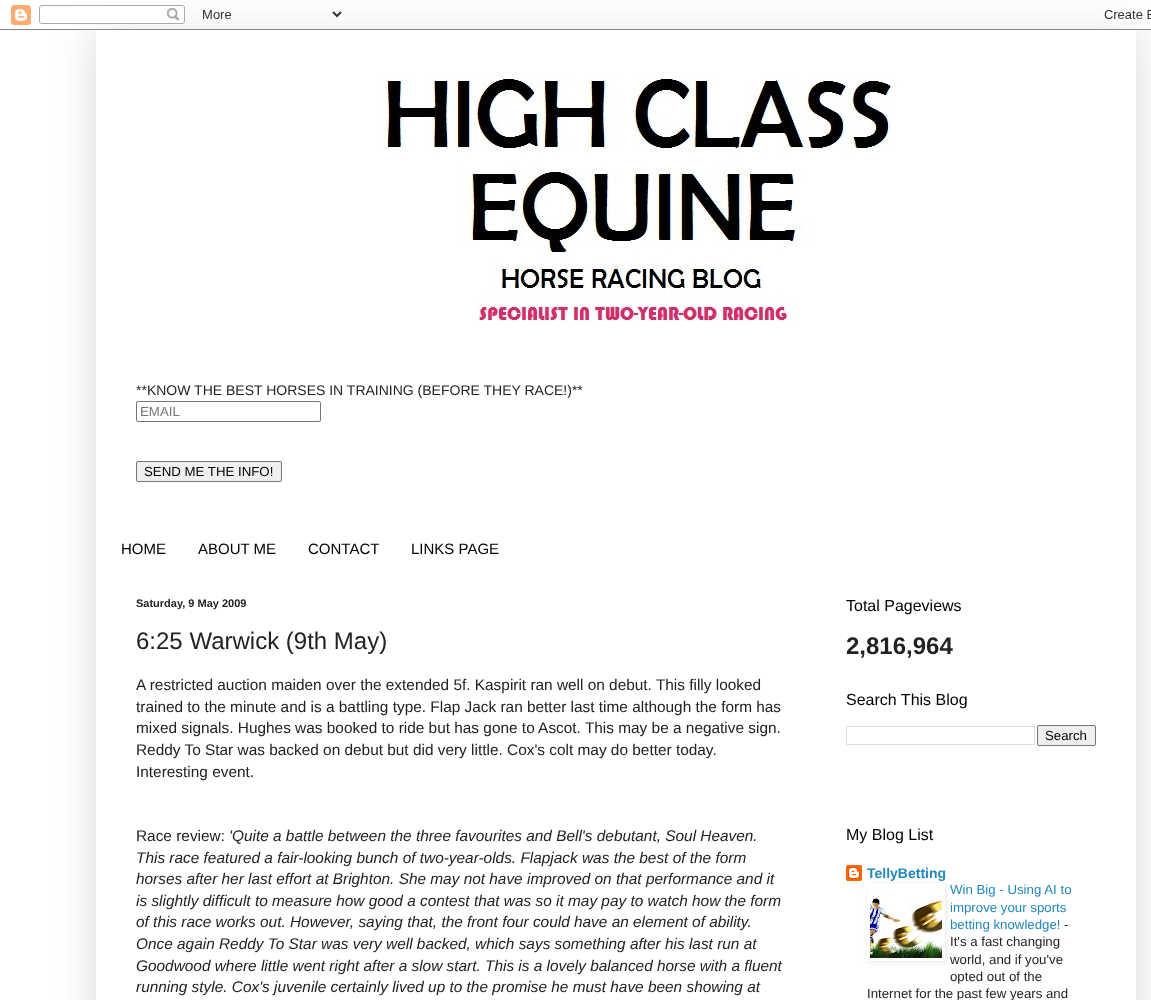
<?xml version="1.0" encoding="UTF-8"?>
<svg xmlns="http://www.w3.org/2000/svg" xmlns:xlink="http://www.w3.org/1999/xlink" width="1151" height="1000">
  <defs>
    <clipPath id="clip1"><path d="M 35 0 h 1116 v 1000 h -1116 z m 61 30 h 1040 v 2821 h -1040 z" clip-rule="evenodd" /></clipPath>
    <clipPath id="clip2"><path d="M 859 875 h 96 v 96 h -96 z m 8 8 h 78 v 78 h -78 z" clip-rule="evenodd" /></clipPath>
  </defs>
  <rect width="100%" height="100%" fill="#ffffff" />
  <g clip-path="url(#clip1)">
    <rect x="96" y="30" width="1040" height="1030" fill="#000000" fill-opacity="0.15" filter="blur(20px)" />
  </g>
  <image x="0" y="5" width="1151" height="25" xlink:href="image1.png" />
  <image x="380" y="72" width="518" height="256" xlink:href="image2.png" />
  <rect x="136.5" y="401.5" width="184" height="20" rx="1.5" fill="none" stroke="#767676" />
  <rect x="136.5" y="461.5" width="145" height="20" rx="1.5" fill="#efefef" stroke="#767676" />
  <rect x="846.5" y="726.5" width="188" height="18" fill="none" stroke="#dddddd" />
  <rect x="1037.5" y="725.5" width="58" height="20" rx="1.5" fill="#efefef" stroke="#767676" />
  <image x="846" y="865" width="16" height="16" xlink:href="image3.png" />
  <g clip-path="url(#clip2)">
    <rect x="868" y="884" width="78" height="78" fill="#000000" fill-opacity="0.1" filter="blur(2.5px)" />
  </g>
  <image x="870" y="894" width="72" height="64" xlink:href="image4.png" />
  <text x="136" y="395" style="font-family: Liberation Sans; font-size: 14px; fill: #222222">**KNOW THE BEST HORSES IN TRAINING (BEFORE THEY RACE!)**</text>
  <text x="140" y="416" style="font-family: Liberation Sans; font-size: 13.25px; fill: #757575">EMAIL</text>
  <text x="144" y="476" style="font-family: Liberation Sans; font-size: 13.25px; fill: #000000">SEND ME THE INFO!</text>
  <text x="121" y="554" style="font-family: Liberation Sans; font-size: 15px; fill: #000000">HOME</text>
  <text x="198" y="554" style="font-family: Liberation Sans; font-size: 15px; fill: #000000">ABOUT ME</text>
  <text x="308" y="554" style="font-family: Liberation Sans; font-size: 15px; fill: #000000">CONTACT</text>
  <text x="411" y="554" style="font-family: Liberation Sans; font-size: 15px; fill: #000000">LINKS PAGE</text>
  <text x="136" y="607" style="font-family: Liberation Sans; font-size: 11px; font-weight: bold; fill: #222222">Saturday, 9 May 2009</text>
  <text x="136" y="649" style="font-family: Liberation Sans; font-size: 24px; fill: #222222">6:25 Warwick (9th May)</text>
  <text x="136" y="690" style="font-family: Liberation Sans; font-size: 15.4px; fill: #222222">A restricted auction maiden over the extended 5f. Kaspirit ran well on debut. This filly looked</text>
  <text x="136" y="712" style="font-family: Liberation Sans; font-size: 15.4px; fill: #222222">trained to the minute and is a battling type. Flap Jack ran better last time although the form has</text>
  <text x="136" y="733" style="font-family: Liberation Sans; font-size: 15.4px; fill: #222222">mixed signals. Hughes was booked to ride but has gone to Ascot. This may be a negative sign.</text>
  <text x="136" y="755" style="font-family: Liberation Sans; font-size: 15.4px; fill: #222222">Reddy To Star was backed on debut but did very little. Cox's colt may do better today.</text>
  <text x="136" y="777" style="font-family: Liberation Sans; font-size: 15.4px; fill: #222222">Interesting event.</text>
  <text x="136" y="841" style="font-family: Liberation Sans; font-size: 15.4px; fill: #222222">Race review:</text>
  <text x="229" y="841" style="font-family: Liberation Sans; font-size: 15.4px; font-style: italic; fill: #222222">'Quite a battle between the three favourites and Bell's debutant, Soul Heaven.</text>
  <text x="136" y="863" style="font-family: Liberation Sans; font-size: 15.4px; font-style: italic; fill: #222222">This race featured a fair-looking bunch of two-year-olds. Flapjack was the best of the form</text>
  <text x="136" y="884" style="font-family: Liberation Sans; font-size: 15.4px; font-style: italic; fill: #222222">horses after her last effort at Brighton. She may not have improved on that performance and it</text>
  <text x="136" y="906" style="font-family: Liberation Sans; font-size: 15.4px; font-style: italic; fill: #222222">is slightly difficult to measure how good a contest that was so it may pay to watch how the form</text>
  <text x="136" y="927" style="font-family: Liberation Sans; font-size: 15.4px; font-style: italic; fill: #222222">of this race works out. However, saying that, the front four could have an element of ability.</text>
  <text x="136" y="949" style="font-family: Liberation Sans; font-size: 15.4px; font-style: italic; fill: #222222">Once again Reddy To Star was very well backed, which says something after his last run at</text>
  <text x="136" y="971" style="font-family: Liberation Sans; font-size: 15.4px; font-style: italic; fill: #222222">Goodwood where little went right after a slow start. This is a lovely balanced horse with a fluent</text>
  <text x="136" y="992" style="font-family: Liberation Sans; font-size: 15.4px; font-style: italic; fill: #222222">running style. Cox's juvenile certainly lived up to the promise he must have been showing at</text>
  <text x="846" y="611" style="font-family: Liberation Sans; font-size: 16px; fill: #000000">Total Pageviews</text>
  <text x="846" y="654" style="font-family: Liberation Sans; font-size: 24px; font-weight: bold; fill: #222222">2,816,964</text>
  <text x="846" y="705" style="font-family: Liberation Sans; font-size: 16px; fill: #000000">Search This Blog</text>
  <text x="1045" y="740" style="font-family: Liberation Sans; font-size: 13.25px; fill: #000000">Search</text>
  <text x="846" y="840" style="font-family: Liberation Sans; font-size: 16px; fill: #000000">My Blog List</text>
  <text x="867" y="878" style="font-family: Liberation Sans; font-size: 14px; font-weight: bold; fill: #2288bb">TellyBetting</text>
  <text x="950" y="894" style="font-family: Liberation Sans; font-size: 13.25px; fill: #2288bb">Win Big - Using AI to</text>
  <text x="950" y="912" style="font-family: Liberation Sans; font-size: 13.25px; fill: #2288bb">improve your sports</text>
  <text x="950" y="929" style="font-family: Liberation Sans; font-size: 13.25px; fill: #2288bb">betting knowledge!</text>
  <text x="1064" y="929" style="font-family: Liberation Sans; font-size: 13.25px; fill: #222222">-</text>
  <text x="950" y="946" style="font-family: Liberation Sans; font-size: 13.25px; fill: #222222">It's a fast changing</text>
  <text x="950" y="964" style="font-family: Liberation Sans; font-size: 13.25px; fill: #222222">world, and if you've</text>
  <text x="950" y="981" style="font-family: Liberation Sans; font-size: 13.25px; fill: #222222">opted out of the</text>
  <text x="867" y="998" style="font-family: Liberation Sans; font-size: 13.25px; fill: #222222">Internet for the past few years and</text>
</svg>
